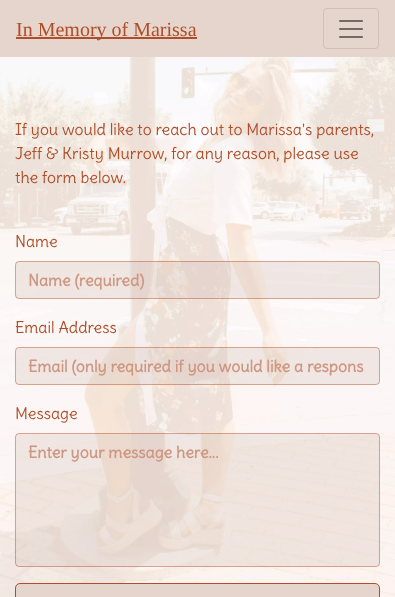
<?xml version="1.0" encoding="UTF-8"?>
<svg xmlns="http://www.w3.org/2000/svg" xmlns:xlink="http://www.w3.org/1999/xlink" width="395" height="597">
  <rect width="100%" height="100%" fill="#ffffff" />
  <image x="0" y="57" width="395" height="540" xlink:href="image1.png" />
  <rect width="395" height="57" fill="#e6d5cc" />
  <rect x="16" y="37" width="181" height="2" fill="#af4e28" />
  <rect x="323.5" y="8.5" width="55" height="40" rx="3.5" fill="none" stroke="#cfc0b8" />
  <image x="339" y="20" width="24" height="18" xlink:href="image2.png" />
  <rect x="16" y="262" width="363" height="36" rx="3" fill="#d5c1b6" fill-opacity="0.3" />
  <rect x="15.5" y="261.5" width="364" height="37" rx="3.5" fill="none" stroke="#af4e28" stroke-opacity="0.5" />
  <rect x="16" y="348" width="363" height="36" rx="3" fill="#d5c1b6" fill-opacity="0.3" />
  <rect x="15.5" y="347.5" width="364" height="37" rx="3.5" fill="none" stroke="#af4e28" stroke-opacity="0.5" />
  <rect x="16" y="434" width="363" height="132" rx="3" fill="#d5c1b6" fill-opacity="0.3" />
  <rect x="15.5" y="433.5" width="364" height="133" rx="3.5" fill="none" stroke="#af4e28" stroke-opacity="0.5" />
  <rect x="15.5" y="583.5" width="364" height="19" rx="4.5" fill="#e6d5cc" stroke="#af4e28" />
  <text x="16" y="36" style="font-family: Liberation Serif; font-size: 20px; fill: #af4e28">In Memory of Marissa</text>
  <text x="15" y="135" style="font-family: Delius; font-size: 16px; fill: #af4e28">If you would like to reach out to Marissa's parents,</text>
  <text x="15" y="159" style="font-family: Delius; font-size: 16px; fill: #af4e28">Jeff &amp; Kristy Murrow, for any reason, please use</text>
  <text x="15" y="183" style="font-family: Delius; font-size: 16px; fill: #af4e28">the form below.</text>
  <text x="15" y="247" style="font-family: Delius; font-size: 16px; fill: #af4e28">Name</text>
  <text x="28" y="286" style="font-family: Delius; font-size: 16px; font-weight: bold; fill: #ce9781">Name (required)</text>
  <text x="15" y="333" style="font-family: Delius; font-size: 16px; fill: #af4e28">Email Address</text>
  <text x="28" y="372" style="font-family: Delius; font-size: 16px; font-weight: bold; fill: #ce9781">Email (only required if you would like a respons</text>
  <text x="15" y="419" style="font-family: Delius; font-size: 16px; fill: #af4e28">Message</text>
  <text x="28" y="458" style="font-family: Delius; font-size: 16px; font-weight: bold; fill: #ce9781">Enter your message here...</text>
</svg>
